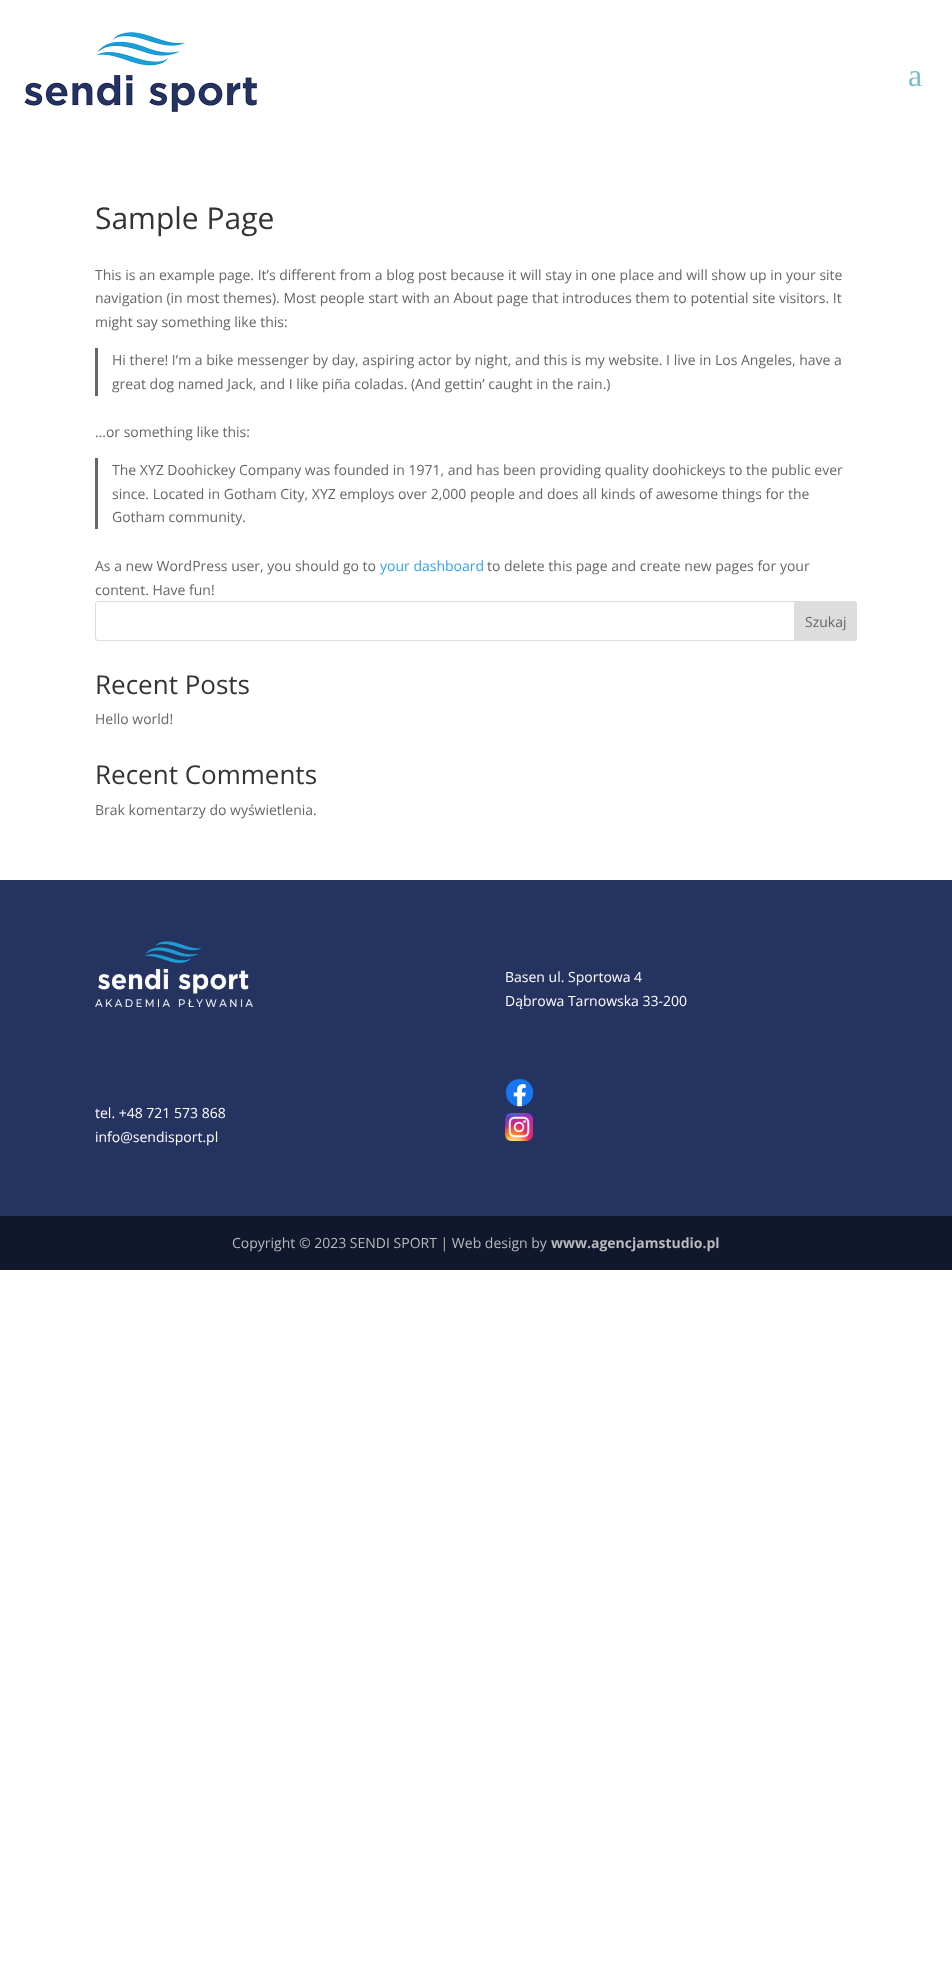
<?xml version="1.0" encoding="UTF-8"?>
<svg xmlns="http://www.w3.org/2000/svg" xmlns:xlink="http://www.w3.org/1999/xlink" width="952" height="1967">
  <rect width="100%" height="100%" fill="#ffffff" />
  <image x="24" y="32" width="233" height="80" xlink:href="image1.png" />
  <rect x="95" y="348" width="3" height="48" fill="#666666" />
  <rect x="95" y="458" width="3" height="71" fill="#666666" />
  <rect x="95.5" y="601.5" width="761" height="39" rx="2.5" fill="none" stroke="#dddddd" />
  <path d="M 794.5 601.5 h 59.5 c 1.5 0 2.5 1 2.5 2.5 v 34 c 0 1.5 -1 2.5 -2.5 2.5 h -59.5 z" fill="#dddddd" stroke="#dddddd" />
  <rect y="880" width="952" height="336" fill="#253361" />
  <image x="95" y="941" width="158" height="66" xlink:href="image2.png" />
  <image x="505" y="1078" width="29" height="29" xlink:href="image3.png" />
  <image x="505" y="1113" width="28" height="28" xlink:href="image4.png" />
  <rect y="1216" width="952" height="54" fill="#11172c" />
  <text x="908" y="86" style="font-family: Liberation Serif; font-size: 32px; fill: #7ebec5">a</text>
  <text x="95" y="229" style="font-family: Open Sans; font-size: 30px; fill: #333333">Sample Page</text>
  <text x="95" y="280" style="font-family: Open Sans; font-size: 14px; fill: #666666">This is an example page. It’s different from a blog post because it will stay in one place and will show up in your site</text>
  <text x="95" y="303" style="font-family: Open Sans; font-size: 14px; fill: #666666">navigation (in most themes). Most people start with an About page that introduces them to potential site visitors. It</text>
  <text x="95" y="327" style="font-family: Open Sans; font-size: 14px; fill: #666666">might say something like this:</text>
  <text x="112" y="365" style="font-family: Open Sans; font-size: 14px; fill: #666666">Hi there! I’m a bike messenger by day, aspiring actor by night, and this is my website. I live in Los Angeles, have a</text>
  <text x="112" y="389" style="font-family: Open Sans; font-size: 14px; fill: #666666">great dog named Jack, and I like piña coladas. (And gettin’ caught in the rain.)</text>
  <text x="95" y="437" style="font-family: Open Sans; font-size: 14px; fill: #666666">…or something like this:</text>
  <text x="112" y="475" style="font-family: Open Sans; font-size: 14px; fill: #666666">The XYZ Doohickey Company was founded in 1971, and has been providing quality doohickeys to the public ever</text>
  <text x="112" y="499" style="font-family: Open Sans; font-size: 14px; fill: #666666">since. Located in Gotham City, XYZ employs over 2,000 people and does all kinds of awesome things for the</text>
  <text x="112" y="522" style="font-family: Open Sans; font-size: 14px; fill: #666666">Gotham community.</text>
  <text x="95" y="571" style="font-family: Open Sans; font-size: 14px; fill: #666666">As a new WordPress user, you should go to</text>
  <text x="380" y="571" style="font-family: Open Sans; font-size: 14px; fill: #2ea3f2">your dashboard</text>
  <text x="487" y="571" style="font-family: Open Sans; font-size: 14px; fill: #666666">to delete this page and create new pages for your</text>
  <text x="95" y="595" style="font-family: Open Sans; font-size: 14px; fill: #666666">content. Have fun!</text>
  <text x="805" y="627" style="font-family: Open Sans; font-size: 14px; fill: #666666">Szukaj</text>
  <text x="95" y="694" style="font-family: Open Sans; font-size: 26px; fill: #333333">Recent Posts</text>
  <text x="95" y="724" style="font-family: Open Sans; font-size: 14px; fill: #666666">Hello world!</text>
  <text x="95" y="784" style="font-family: Open Sans; font-size: 26px; fill: #333333">Recent Comments</text>
  <text x="95" y="815" style="font-family: Open Sans; font-size: 14px; fill: #666666">Brak komentarzy do wyświetlenia.</text>
  <text x="505" y="982" style="font-family: Open Sans; font-size: 14px; fill: #ffffff">Basen ul. Sportowa 4</text>
  <text x="505" y="1006" style="font-family: Open Sans; font-size: 14px; fill: #ffffff">Dąbrowa Tarnowska 33-200</text>
  <text x="95" y="1118" style="font-family: Open Sans; font-size: 14px; fill: #ffffff">tel. +48 721 573 868</text>
  <text x="95" y="1142" style="font-family: Open Sans; font-size: 14px; fill: #ffffff">info@sendisport.pl</text>
  <text x="232" y="1248" style="font-family: Open Sans; font-size: 14px; fill: #bababa">Copyright © 2023 SENDI SPORT | Web design by</text>
  <text x="551" y="1248" style="font-family: Open Sans; font-size: 14px; font-weight: bold; fill: #bababa">www.agencjamstudio.pl</text>
</svg>
